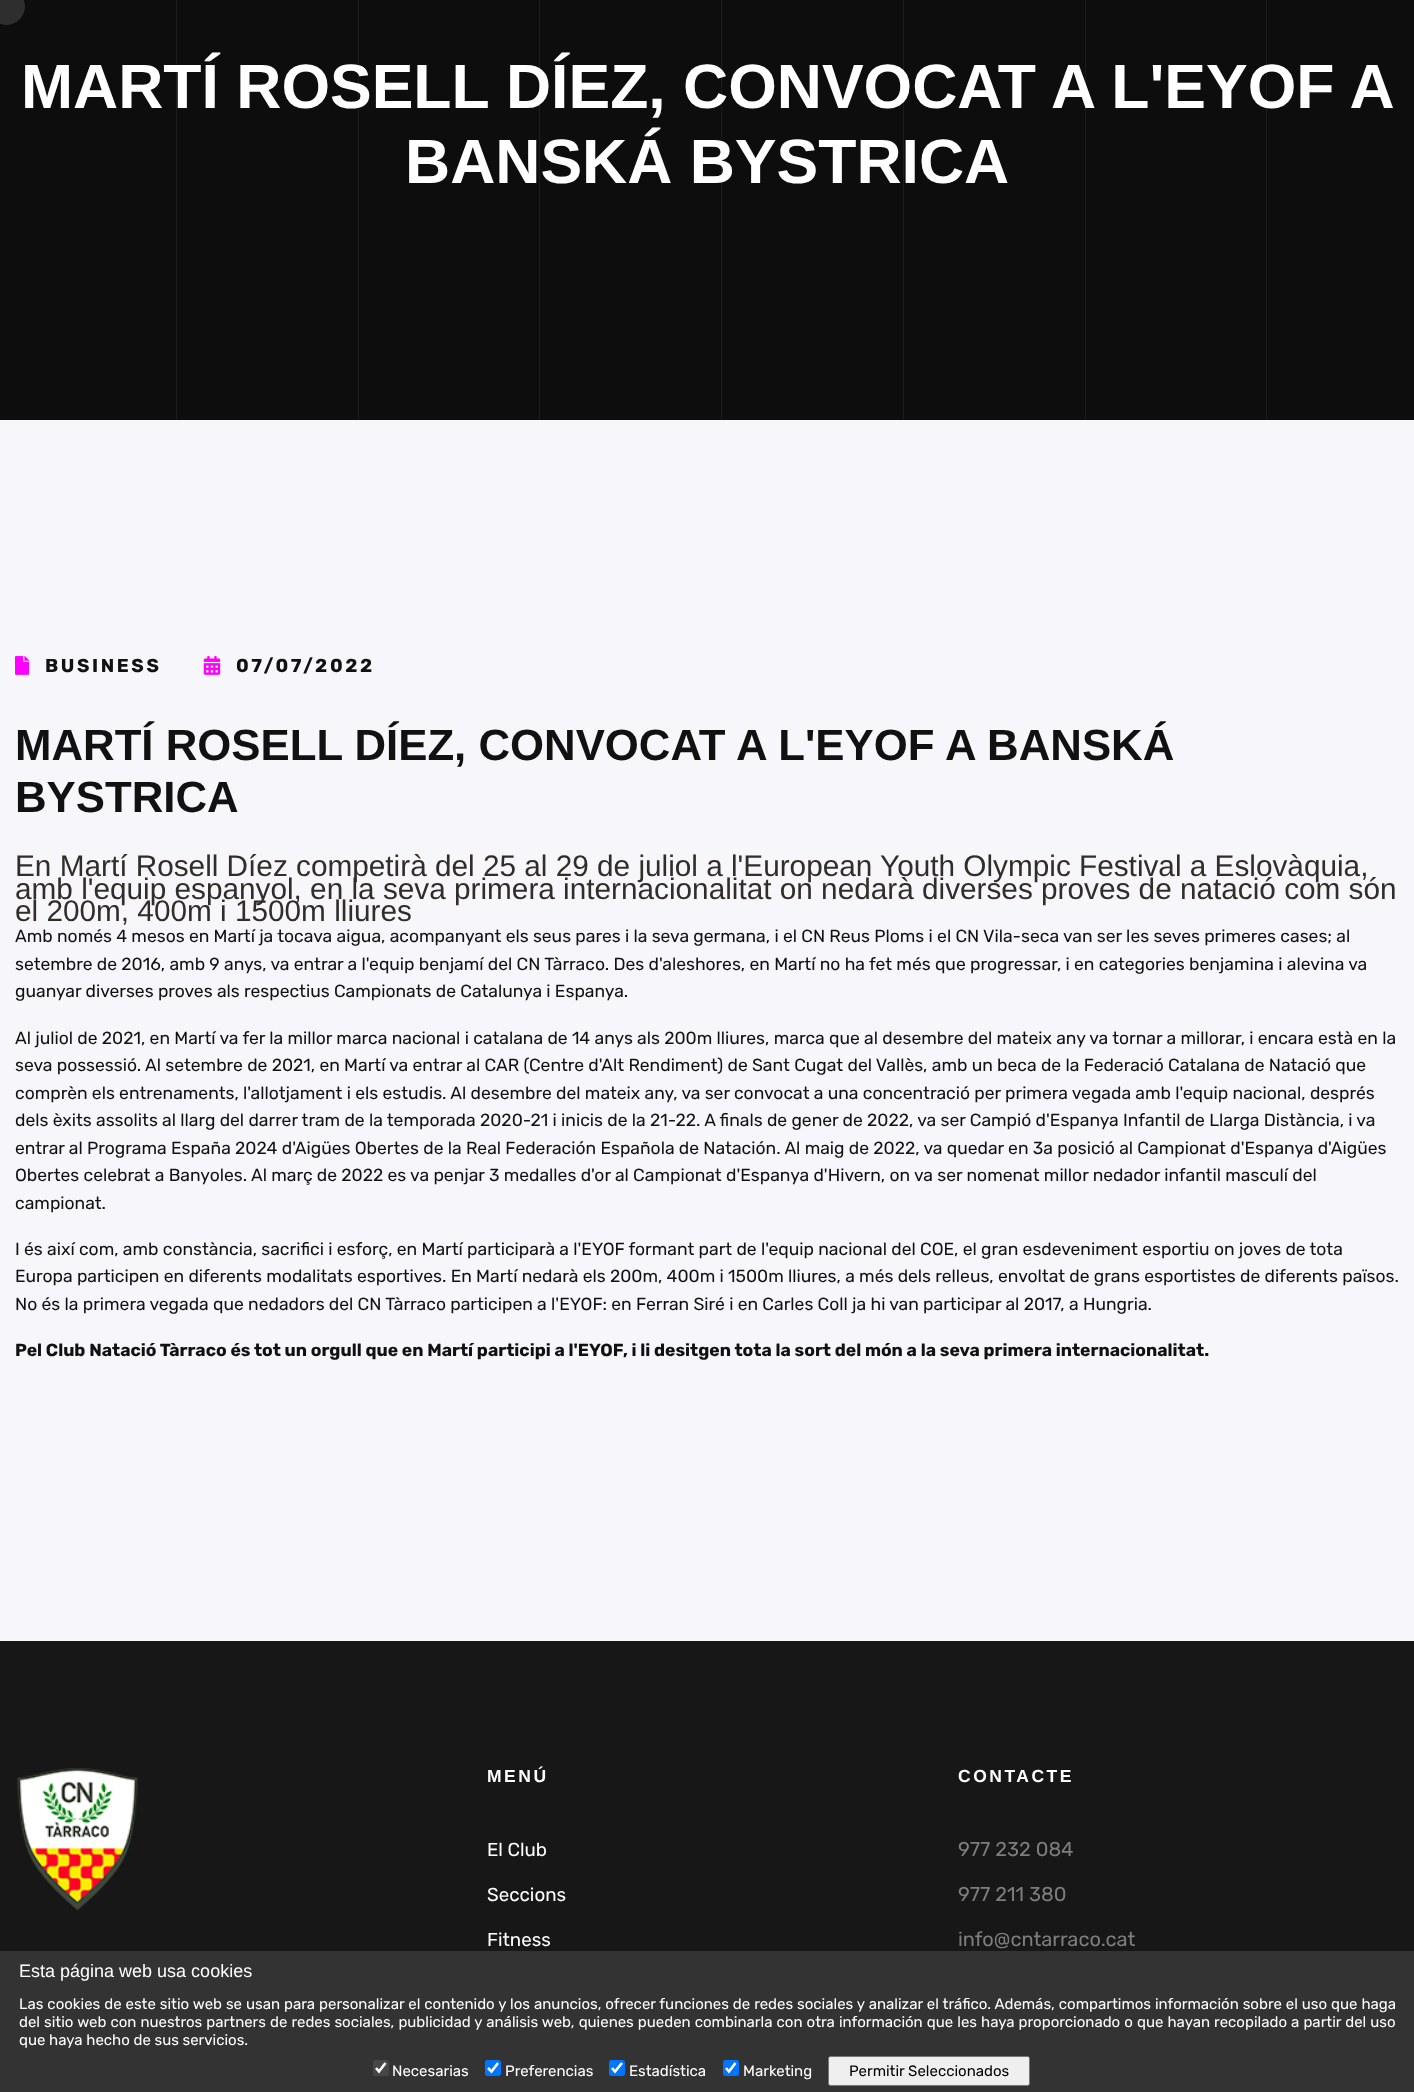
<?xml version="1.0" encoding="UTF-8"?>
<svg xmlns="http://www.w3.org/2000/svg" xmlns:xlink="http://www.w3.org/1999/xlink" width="1414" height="2092">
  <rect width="100%" height="100%" fill="#0d0d0d" />
  <circle cx="6.5" cy="6.5" r="18.5" fill="#2e2e2e" />
  <rect x="176" width="1" height="420" fill="#1c1c1c" />
  <rect x="358" width="1" height="420" fill="#1c1c1c" />
  <rect x="539" width="1" height="420" fill="#1c1c1c" />
  <rect x="721" width="1" height="420" fill="#1c1c1c" />
  <rect x="903" width="1" height="420" fill="#1c1c1c" />
  <rect x="1085" width="1" height="420" fill="#1c1c1c" />
  <rect x="1266" width="1" height="420" fill="#1c1c1c" />
  <rect y="420" width="1414" height="1221" fill="#f7f6fb" />
  <image x="15" y="656" width="15" height="19" xlink:href="image1.png" />
  <image x="203" y="656" width="18" height="19" xlink:href="image2.png" />
  <rect y="1641" width="1414" height="310" fill="#171717" />
  <image x="17" y="1768" width="121" height="143" xlink:href="image3.png" />
  <rect y="1951" width="1414" height="141" fill="#333333" />
  <rect x="373" y="2060" width="16" height="16" rx="2.5" fill="#474747" />
  <path d="M 376 2068 l 3 3.5 l 6.5 -8.5" fill="none" stroke="#ffffff" stroke-width="2.6" />
  <rect x="485" y="2060" width="16" height="16" rx="2.5" fill="#0075ff" />
  <path d="M 488 2068 l 3.5 3.5 l 6.5 -8.5" fill="none" stroke="#ffffff" stroke-width="2.6" />
  <rect x="609" y="2060" width="16" height="16" rx="2.5" fill="#0075ff" />
  <path d="M 612 2068 l 3 3.5 l 7 -8.5" fill="none" stroke="#ffffff" stroke-width="2.6" />
  <rect x="723" y="2060" width="16" height="16" rx="2.5" fill="#0075ff" />
  <path d="M 726 2068 l 3 3.5 l 6.5 -8.5" fill="none" stroke="#ffffff" stroke-width="2.6" />
  <rect x="828.5" y="2056.5" width="201" height="29" rx="2" fill="#efefef" stroke="#767676" />
  <text x="21" y="108" style="font-family: Arimo; font-size: 62.5px; font-weight: bold; fill: #ffffff">MARTÍ ROSELL DÍEZ, CONVOCAT A L'EYOF A</text>
  <text x="405" y="183" style="font-family: Arimo; font-size: 62.5px; font-weight: bold; fill: #ffffff">BANSKÁ BYSTRICA</text>
  <text x="45" y="672" style="font-family: Rubik; font-size: 18.75px; font-weight: bold; letter-spacing: 2.6px; fill: #111111">BUSINESS</text>
  <text x="236" y="672" style="font-family: Rubik; font-size: 18.75px; font-weight: bold; letter-spacing: 2.6px; fill: #111111">07/07/2022</text>
  <text x="15" y="760" style="font-family: Arimo; font-size: 43.75px; font-weight: bold; fill: #111111">MARTÍ ROSELL DÍEZ, CONVOCAT A L'EYOF A BANSKÁ</text>
  <text x="15" y="812" style="font-family: Arimo; font-size: 43.75px; font-weight: bold; fill: #111111">BYSTRICA</text>
  <text x="15" y="876" style="font-family: Arimo; font-size: 29.75px; fill: #312e29">En Martí Rosell Díez competirà del 25 al 29 de juliol a l'European Youth Olympic Festival a Eslovàquia,</text>
  <text x="15" y="899" style="font-family: Arimo; font-size: 29.75px; fill: #312e29">amb l'equip espanyol, en la seva primera internacionalitat on nedarà diverses proves de natació com són</text>
  <text x="15" y="921" style="font-family: Arimo; font-size: 29.75px; fill: #312e29">el 200m, 400m i 1500m lliures</text>
  <text x="15" y="942" style="font-family: Rubik; font-size: 17.5px; fill: #111111">Amb només 4 mesos en Martí ja tocava aigua, acompanyant els seus pares i la seva germana, i el CN Reus Ploms i el CN Vila-seca van ser les seves primeres cases; al</text>
  <text x="15" y="970" style="font-family: Rubik; font-size: 17.5px; fill: #111111">setembre de 2016, amb 9 anys, va entrar a l'equip benjamí del CN Tàrraco. Des d'aleshores, en Martí no ha fet més que progressar, i en categories benjamina i alevina va</text>
  <text x="15" y="997" style="font-family: Rubik; font-size: 17.5px; fill: #111111">guanyar diverses proves als respectius Campionats de Catalunya i Espanya.</text>
  <text x="15" y="1044" style="font-family: Rubik; font-size: 17.5px; fill: #111111">Al juliol de 2021, en Martí va fer la millor marca nacional i catalana de 14 anys als 200m lliures, marca que al desembre del mateix any va tornar a millorar, i encara està en la</text>
  <text x="15" y="1071" style="font-family: Rubik; font-size: 17.5px; fill: #111111">seva possessió. Al setembre de 2021, en Martí va entrar al CAR (Centre d'Alt Rendiment) de Sant Cugat del Vallès, amb un beca de la Federació Catalana de Natació que</text>
  <text x="15" y="1099" style="font-family: Rubik; font-size: 17.5px; fill: #111111">comprèn els entrenaments, l'allotjament i els estudis. Al desembre del mateix any, va ser convocat a una concentració per primera vegada amb l'equip nacional, després</text>
  <text x="15" y="1126" style="font-family: Rubik; font-size: 17.5px; fill: #111111">dels èxits assolits al llarg del darrer tram de la temporada 2020-21 i inicis de la 21-22. A finals de gener de 2022, va ser Campió d'Espanya Infantil de Llarga Distància, i va</text>
  <text x="15" y="1154" style="font-family: Rubik; font-size: 17.5px; fill: #111111">entrar al Programa España 2024 d'Aigües Obertes de la Real Federación Española de Natación. Al maig de 2022, va quedar en 3a posició al Campionat d'Espanya d'Aigües</text>
  <text x="15" y="1181" style="font-family: Rubik; font-size: 17.5px; fill: #111111">Obertes celebrat a Banyoles. Al març de 2022 es va penjar 3 medalles d'or al Campionat d'Espanya d'Hivern, on va ser nomenat millor nedador infantil masculí del</text>
  <text x="15" y="1209" style="font-family: Rubik; font-size: 17.5px; fill: #111111">campionat.</text>
  <text x="15" y="1255" style="font-family: Rubik; font-size: 17.5px; fill: #111111">I és així com, amb constància, sacrifici i esforç, en Martí participarà a l'EYOF formant part de l'equip nacional del COE, el gran esdeveniment esportiu on joves de tota</text>
  <text x="15" y="1282" style="font-family: Rubik; font-size: 17.5px; fill: #111111">Europa participen en diferents modalitats esportives. En Martí nedarà els 200m, 400m i 1500m lliures, a més dels relleus, envoltat de grans esportistes de diferents països.</text>
  <text x="15" y="1310" style="font-family: Rubik; font-size: 17.5px; fill: #111111">No és la primera vegada que nedadors del CN Tàrraco participen a l'EYOF: en Ferran Siré i en Carles Coll ja hi van participar al 2017, a Hungria.</text>
  <text x="15" y="1356" style="font-family: Rubik; font-size: 17.5px; font-weight: bold; fill: #111111">Pel Club Natació Tàrraco és tot un orgull que en Martí participi a l'EYOF, i li desitgen tota la sort del món a la seva primera internacionalitat.</text>
  <text x="487" y="1782" style="font-family: Arimo; font-size: 17.5px; font-weight: bold; letter-spacing: 2.5px; fill: #ffffff">MENÚ</text>
  <text x="487" y="1856" style="font-family: Rubik; font-size: 18.75px; fill: #ffffff">El Club</text>
  <text x="487" y="1901" style="font-family: Rubik; font-size: 18.75px; fill: #ffffff">Seccions</text>
  <text x="487" y="1946" style="font-family: Rubik; font-size: 18.75px; fill: #ffffff">Fitness</text>
  <text x="958" y="1782" style="font-family: Arimo; font-size: 17.5px; font-weight: bold; letter-spacing: 2.5px; fill: #ffffff">CONTACTE</text>
  <text x="958" y="1856" style="font-family: Rubik; font-size: 20px; fill: #7d7d7d">977 232 084</text>
  <text x="958" y="1901" style="font-family: Rubik; font-size: 20px; fill: #7d7d7d">977 211 380</text>
  <text x="958" y="1946" style="font-family: Rubik; font-size: 20px; fill: #7d7d7d">info@cntarraco.cat</text>
  <text x="19" y="1977" style="font-family: Arimo; font-size: 18px; fill: #ffffff">Esta página web usa cookies</text>
  <text x="19" y="2009" word-spacing="0.3" style="font-family: Rubik; font-size: 15px; fill: #ffffff">Las cookies de este sitio web se usan para personalizar el contenido y los anuncios, ofrecer funciones de redes sociales y analizar el tráfico. Además, compartimos información sobre el uso que haga</text>
  <text x="19" y="2027" word-spacing="0.4" style="font-family: Rubik; font-size: 15px; fill: #ffffff">del sitio web con nuestros partners de redes sociales, publicidad y análisis web, quienes pueden combinarla con otra información que les haya proporcionado o que hayan recopilado a partir del uso</text>
  <text x="19" y="2045" style="font-family: Rubik; font-size: 15px; fill: #ffffff">que haya hecho de sus servicios.</text>
  <text x="392" y="2076" style="font-family: Rubik; font-size: 15px; fill: #ffffff">Necesarias</text>
  <text x="505" y="2076" style="font-family: Rubik; font-size: 15px; fill: #ffffff">Preferencias</text>
  <text x="629" y="2076" style="font-family: Rubik; font-size: 15px; fill: #ffffff">Estadística</text>
  <text x="743" y="2076" style="font-family: Rubik; font-size: 15px; fill: #ffffff">Marketing</text>
  <text x="849" y="2076" style="font-family: Rubik; font-size: 15px; fill: #000000">Permitir Seleccionados</text>
</svg>
